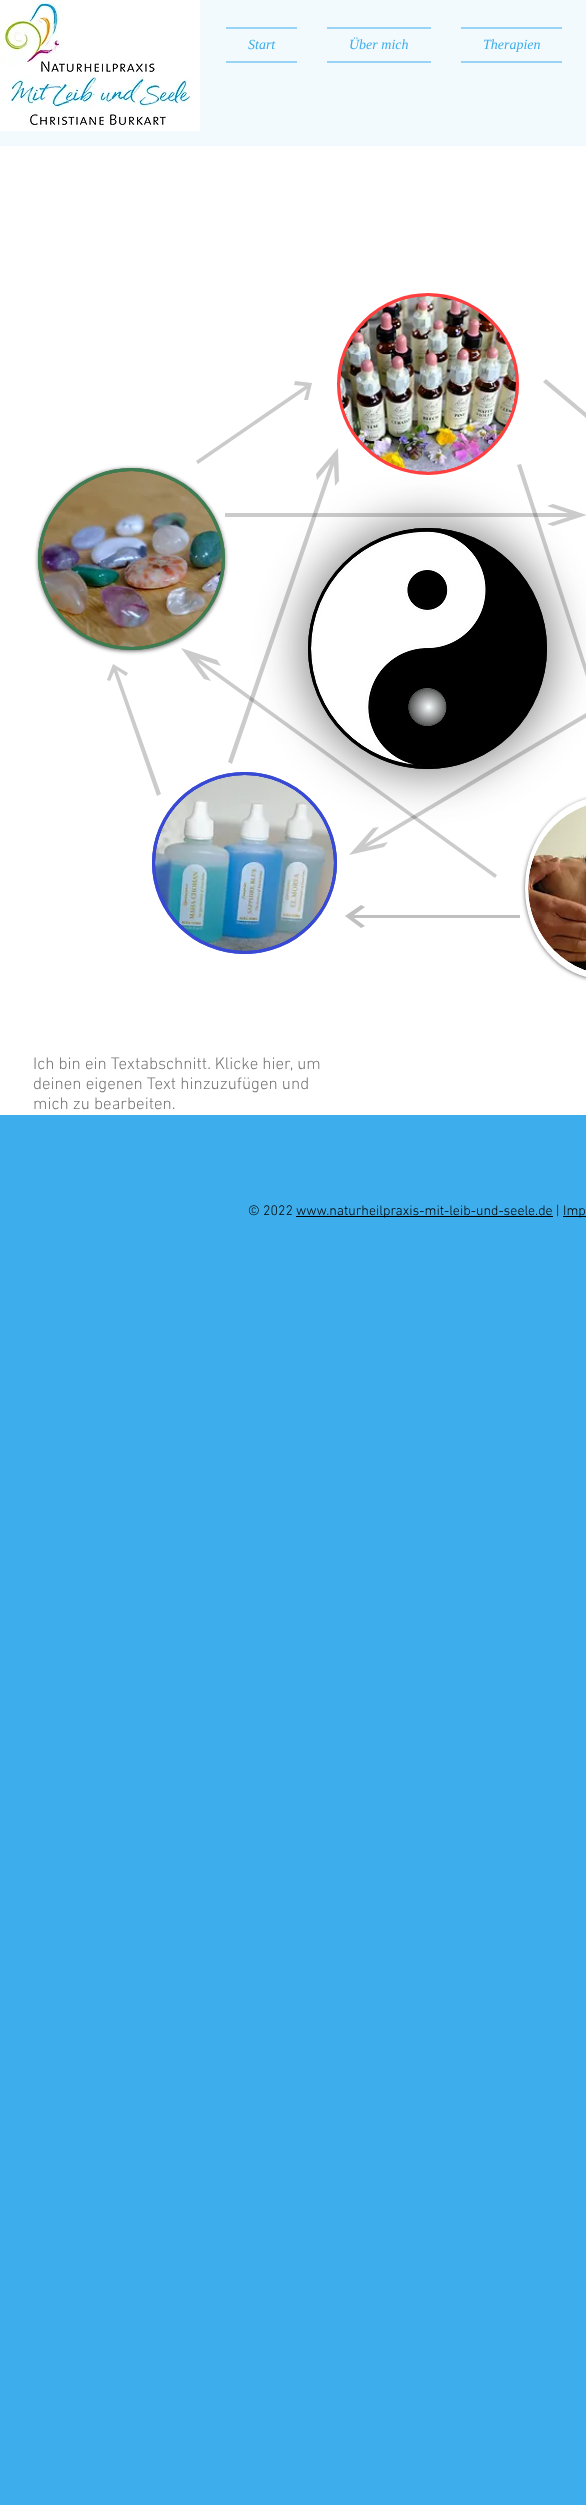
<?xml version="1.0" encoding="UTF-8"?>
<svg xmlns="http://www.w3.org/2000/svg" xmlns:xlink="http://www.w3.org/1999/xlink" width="586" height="2505">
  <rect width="100%" height="100%" fill="#3daeeb" />
  <rect width="586" height="146" fill="#f3fafe" />
  <image x="0" y="0" width="200" height="131" xlink:href="image1.png" />
  <rect x="226" y="27" width="71" height="2" fill="#98d4f5" />
  <rect x="226" y="61" width="71" height="2" fill="#98d4f5" />
  <rect x="327" y="27" width="104" height="2" fill="#98d4f5" />
  <rect x="327" y="61" width="104" height="2" fill="#98d4f5" />
  <rect x="461" y="27" width="101" height="2" fill="#98d4f5" />
  <rect x="461" y="61" width="101" height="2" fill="#98d4f5" />
  <rect y="146" width="586" height="969" fill="#ffffff" />
  <path d="M 553 526 l 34 -11 l -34 -11 l -6 2 l 21 7 h -343 v 4 h 343 l -21 7 z" fill="#cbcbcb" />
  <path d="M 217 660 l -36 -12 l 23 31 l 7 2 l -14 -19 l 298 216 l 2 -3 l -298 -216 l 22 7 z" fill="#cbcbcb" />
  <rect x="38" y="469" width="187" height="182" rx="91" fill="#000000" fill-opacity="0.6" filter="blur(2px)" />
  <circle cx="428" cy="384" r="89.5" fill="#ff4040" stroke="#ff4040" stroke-width="3" />
  <image x="340" y="296" width="176" height="176" xlink:href="image2.png" />
  <ellipse cx="244.5" cy="863" rx="92.5" ry="91" fill="#384ad3" />
  <path d="M 244.5 773.5 c 50.5 0 91 40 91 89.5 c 0 49.5 -40.5 89.5 -91 89.5 c -50.5 0 -91 -40 -91 -89.5 c 0 -49.5 40.5 -89.5 91 -89.5 z" fill="none" stroke="#384ad3" stroke-width="3" />
  <image x="155" y="775" width="179" height="176" xlink:href="image5.png" />
  <rect x="299" y="519" width="257" height="259" rx="128.5" fill="#2f2e2e" fill-opacity="0.5" filter="blur(21px)" />
  <path d="M 308 400 l 4 -17 l -17 -2 l -1 4 l 11 1 l -109 75 l 2 3 l 109 -75 l -3 11 z" fill="#cbcbcb" />
  <path d="M 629 467 l 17 -1 l -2 -16 h -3 l 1 10 l -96 -81 l -3 3 l 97 81 l -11 1 z" fill="#cbcbcb" />
  <ellipse cx="427.5" cy="648.5" rx="119.5" ry="120.5" fill="#000000" />
  <path d="M 427.5 529.5 c 65 0 118 53.5 118 119 c 0 65.5 -53 119 -118 119 c -65 0 -118 -53.5 -118 -119 c 0 -65.5 53 -119 118 -119 z" fill="none" stroke="#000000" stroke-width="3" />
  <image x="311" y="531" width="175" height="235" xlink:href="image4.png" />
  <path d="M 339 481 l -1 -33 l -22 26 l 1 6 l 13 -16 l -102 298 l 4 2 l 102 -299 l 1 21 z" fill="#2f2e2e" fill-opacity="0.25" />
  <ellipse cx="131.5" cy="559" rx="93.5" ry="91" fill="#407c51" />
  <path d="M 131.5 469.5 c 51 0 92 40 92 89.5 c 0 49.5 -41 89.5 -92 89.5 c -51 0 -92 -40 -92 -89.5 c 0 -49.5 41 -89.5 92 -89.5 z" fill="none" stroke="#407c51" stroke-width="3" />
  <image x="41" y="471" width="181" height="176" xlink:href="image3.png" />
  <path d="M 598 743 l 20 25 l 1 -32 l -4 -4 l -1 19 l -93 -287 l -4 1 l 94 288 l -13 -16 z" fill="#2f2e2e" fill-opacity="0.25" />
  <path d="M 128 673 l -15 -9 l -6 16 l 3 1 l 4 -9 l 43 124 l 4 -2 l -44 -124 l 9 6 z" fill="#cbcbcb" />
  <rect x="525" y="798" width="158" height="182" rx="91" fill="#000000" fill-opacity="0.6" filter="blur(2px)" />
  <rect x="526.5" y="798.5" width="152" height="179" rx="89.5" fill="#ffffff" stroke="#ffffff" stroke-width="3" />
  <image x="528" y="806" width="58" height="165" xlink:href="image6.png" />
  <path d="M 373 828 l -24 27 l 35 -8 l 4 -5 l -21 5 l 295 -174 l -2 -4 l -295 175 l 14 -17 z" fill="#2f2e2e" fill-opacity="0.25" />
  <path d="M 361 905 l -16 11 l 16 12 l 4 -2 l -11 -8 h 166 v -3 h -166 l 11 -8 z" fill="#c1c0c0" />
  <rect x="296" y="1216" width="257" height="1" fill="#000000" />
  <rect x="563" y="1216" width="23" height="1" fill="#000000" />
  <text x="248" y="49" style="font-family: Liberation Serif; font-size: 14px; font-style: italic; fill: #3daeeb">Start</text>
  <text x="349" y="49" style="font-family: Liberation Serif; font-size: 14px; font-style: italic; fill: #3daeeb">Über mich</text>
  <text x="483" y="49" style="font-family: Liberation Serif; font-size: 14px; font-style: italic; fill: #3daeeb">Therapien</text>
  <text x="33" y="1069" style="font-family: 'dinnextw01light'; font-size: 17px; font-weight: 300; fill: #767676">Ich bin ein Textabschnitt. Klicke hier, um</text>
  <text x="33" y="1089" style="font-family: 'dinnextw01light'; font-size: 17px; font-weight: 300; fill: #767676">deinen eigenen Text hinzuzufügen und</text>
  <text x="33" y="1109" style="font-family: 'dinnextw01light'; font-size: 17px; font-weight: 300; fill: #767676">mich zu bearbeiten.</text>
  <text x="248" y="1215" style="font-family: 'dinnextw01light'; font-size: 14px; font-weight: 300; fill: #000000">© 2022</text>
  <text x="296" y="1215" style="font-family: 'dinnextw01light'; font-size: 14px; font-weight: 300; fill: #000000">www.naturheilpraxis-mit-leib-und-seele.de |</text>
  <text x="563" y="1215" style="font-family: 'dinnextw01light'; font-size: 14px; font-weight: 300; fill: #000000">Imp</text>
</svg>
